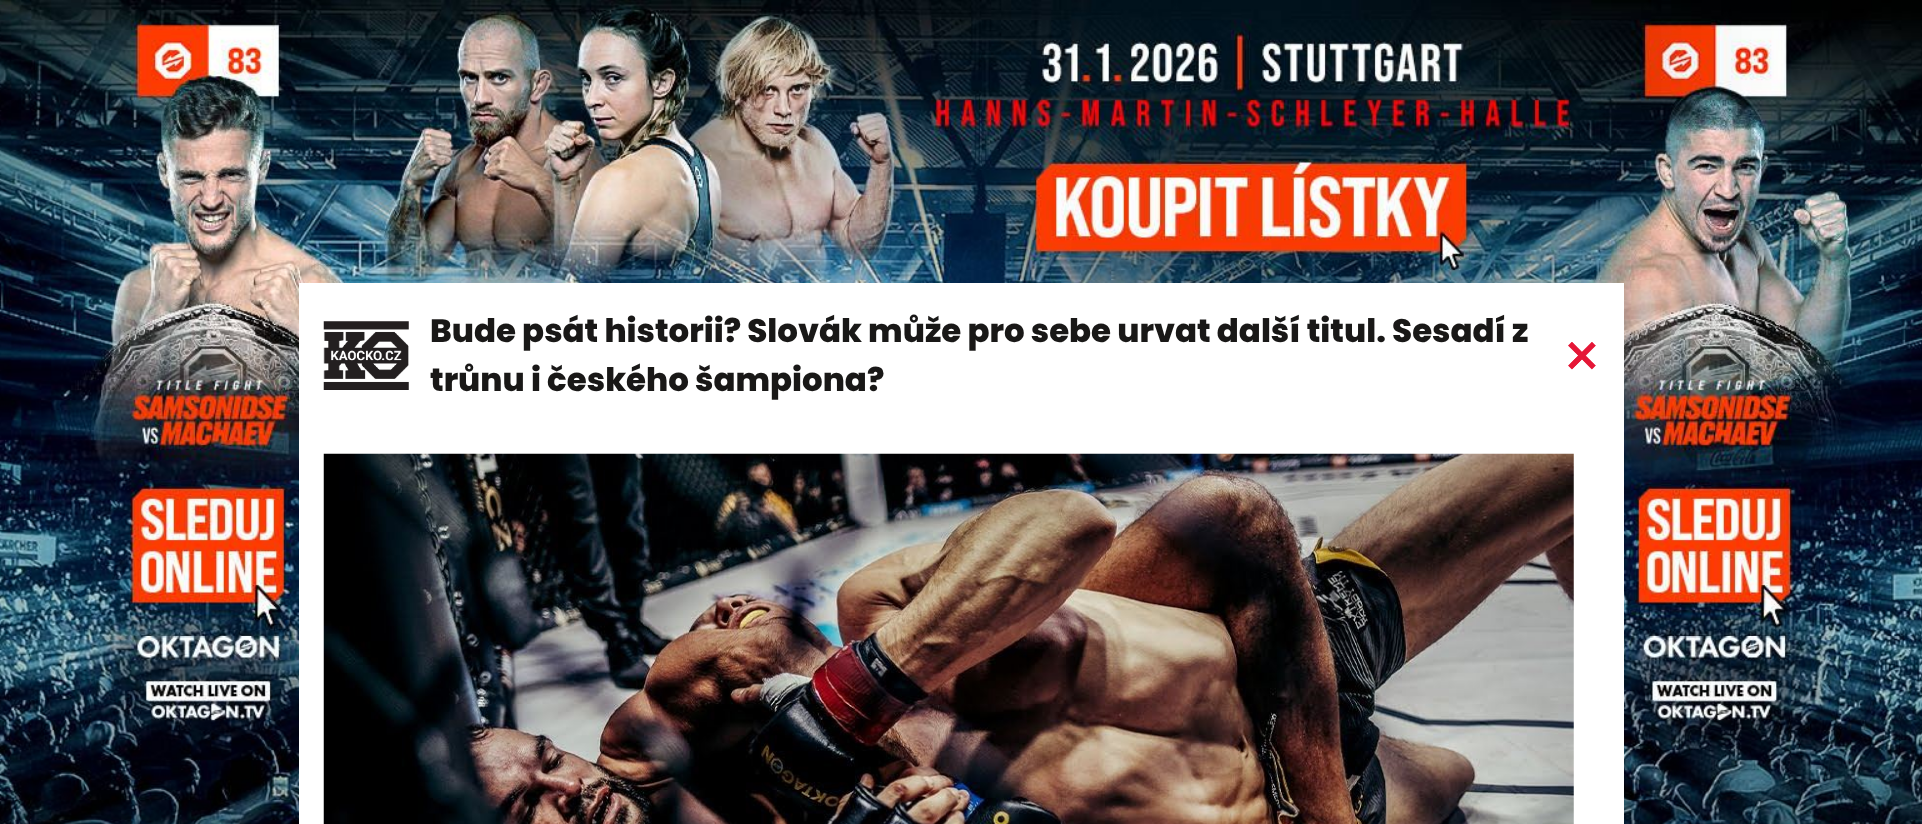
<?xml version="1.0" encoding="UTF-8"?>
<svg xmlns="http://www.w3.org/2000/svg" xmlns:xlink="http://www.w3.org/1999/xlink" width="1922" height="824">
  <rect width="100%" height="100%" fill="#ffffff" />
  <image x="0" y="0" width="1922" height="824" xlink:href="image1.png" />
  <rect x="299" y="283" width="1325" height="541" fill="#ffffff" />
  <image x="323" y="321" width="86" height="69" xlink:href="image2.png" />
  <image x="1568" y="342" width="28" height="28" xlink:href="image3.png" />
  <image x="323" y="453" width="1251" height="371" xlink:href="image4.png" />
  <text x="430" y="342" style="font-family: Poppins; font-size: 32.4px; font-weight: 800; fill: #191817">Bude psát historii? Slovák může pro sebe urvat další titul. Sesadí z</text>
  <text x="430" y="391" style="font-family: Poppins; font-size: 32.4px; font-weight: 800; fill: #191817">trůnu i českého šampiona?</text>
</svg>
